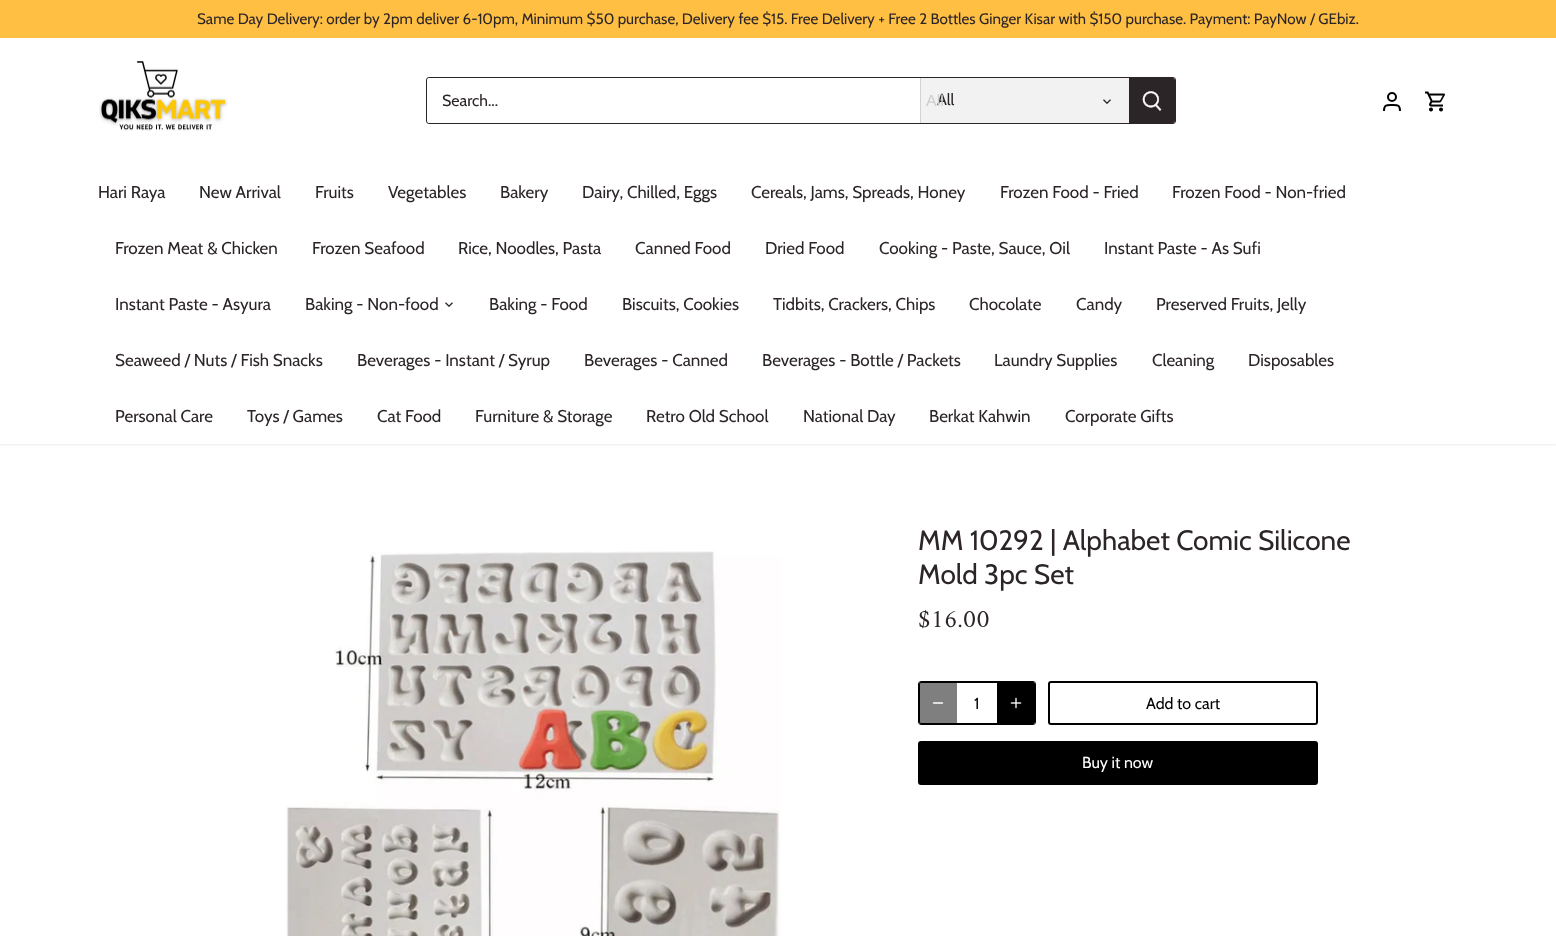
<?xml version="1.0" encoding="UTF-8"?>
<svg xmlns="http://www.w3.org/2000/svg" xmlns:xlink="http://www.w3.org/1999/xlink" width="1556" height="936">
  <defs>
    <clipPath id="clip1"><rect x="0" y="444" width="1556" height="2" /></clipPath>
    <clipPath id="clip2"><rect x="919" y="682" width="116" height="42" rx="2" /></clipPath>
  </defs>
  <rect width="100%" height="100%" fill="#ffffff" />
  <g clip-path="url(#clip1)">
    <rect x="-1" y="37" width="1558" height="408" fill="#000000" fill-opacity="0.08" filter="blur(1.5px)" />
  </g>
  <rect width="1556" height="38" fill="#ffbf43" />
  <image x="99" y="61" width="129" height="70" xlink:href="image1.png" />
  <rect x="426.5" y="77.5" width="749" height="46" rx="2.5" fill="none" stroke="#2c2528" />
  <path d="M 430 78 h 490 v 45 h -490 c -1.5 0 -3 -1.5 -3 -3 v -39 c 0 -1.5 1.5 -3 3 -3 z" fill="#ffffff" />
  <rect x="921" y="78" width="208" height="45" fill="#f2f2f2" />
  <rect x="920" y="78" width="1" height="45" fill="#d3d1d2" />
  <image x="1103" y="99" width="8" height="5" xlink:href="image2.png" />
  <path d="M 1129 78 h 44 c 1 0 2 1 2 2 v 41 c 0 1 -1 2 -2 2 h -44 z" fill="#2c2528" />
  <image x="1142" y="91" width="20" height="20" xlink:href="image3.png" />
  <circle cx="1392" cy="97" r="4" fill="none" stroke="#000000" stroke-width="2" />
  <path d="M 1400 111 c 0 -6.5 -2.5 -6 -8 -6 c -5.5 0 -8 -0.5 -8 6" fill="none" stroke="#000000" stroke-width="2" />
  <image x="1425" y="91" width="20" height="21" xlink:href="image4.png" />
  <image x="445" y="302" width="8" height="5" xlink:href="image5.png" />
  <image x="286" y="551" width="495" height="385" xlink:href="image6.png" />
  <rect x="919.5" y="682.5" width="115" height="41" rx="1.5" fill="none" stroke="#000000" />
  <rect x="918.5" y="681.5" width="117" height="43" rx="2.5" fill="none" stroke="#000000" />
  <path d="M 922 682 h 35 v 42 h -35 c -1.5 0 -3 -1.5 -3 -3 v -36 c 0 -1.5 1.5 -3 3 -3 z" fill="#000000" fill-opacity="0.5" />
  <path d="M 933.5 703 h 9" fill="none" stroke="#ffffff" stroke-width="1.3" stroke-linecap="round" stroke-linejoin="round" />
  <g clip-path="url(#clip2)">
    <path d="M 997 682 h 35 c 1.5 0 3 1.5 3 3 v 36 c 0 1.5 -1.5 3 -3 3 h -35 z" fill="#000000" />
  </g>
  <image x="1010" y="697" width="12" height="12" xlink:href="image7.png" />
  <rect x="1049" y="682" width="268" height="42" rx="2" fill="none" stroke="#000000" stroke-width="2" />
  <rect x="918" y="741" width="400" height="44" rx="3" fill="#000000" />
  <text x="197" y="24" style="font-family: Cabin; font-size: 15.2px; fill: #2c2528">Same Day Delivery: order by 2pm deliver 6-10pm, Minimum $50 purchase, Delivery fee $15. Free Delivery + Free 2 Bottles Ginger Kisar with $150 purchase. Payment: PayNow / GEbiz.</text>
  <text x="442" y="106" style="font-family: Cabin; font-size: 16px; fill: #2c2528">Search...</text>
  <text x="937" y="105" style="font-family: Cabin; font-size: 16px; fill: #2c2528">All</text>
  <text x="926" y="106" style="font-family: Liberation Sans; font-size: 16px; fill: #cecdcd">All</text>
  <text x="98" y="198" style="font-family: Cabin; font-size: 17px; fill: #2c2528">Hari Raya</text>
  <text x="199" y="198" style="font-family: Cabin; font-size: 17px; fill: #2c2528">New Arrival</text>
  <text x="315" y="198" style="font-family: Cabin; font-size: 17px; fill: #2c2528">Fruits</text>
  <text x="388" y="198" style="font-family: Cabin; font-size: 17px; fill: #2c2528">Vegetables</text>
  <text x="500" y="198" style="font-family: Cabin; font-size: 17px; fill: #2c2528">Bakery</text>
  <text x="582" y="198" style="font-family: Cabin; font-size: 17px; fill: #2c2528">Dairy, Chilled, Eggs</text>
  <text x="751" y="198" style="font-family: Cabin; font-size: 17px; fill: #2c2528">Cereals, Jams, Spreads, Honey</text>
  <text x="1000" y="198" style="font-family: Cabin; font-size: 17px; fill: #2c2528">Frozen Food - Fried</text>
  <text x="1172" y="198" style="font-family: Cabin; font-size: 17px; fill: #2c2528">Frozen Food - Non-fried</text>
  <text x="115" y="254" style="font-family: Cabin; font-size: 17px; fill: #2c2528">Frozen Meat &amp; Chicken</text>
  <text x="312" y="254" style="font-family: Cabin; font-size: 17px; fill: #2c2528">Frozen Seafood</text>
  <text x="458" y="254" style="font-family: Cabin; font-size: 17px; fill: #2c2528">Rice, Noodles, Pasta</text>
  <text x="635" y="254" style="font-family: Cabin; font-size: 17px; fill: #2c2528">Canned Food</text>
  <text x="765" y="254" style="font-family: Cabin; font-size: 17px; fill: #2c2528">Dried Food</text>
  <text x="879" y="254" style="font-family: Cabin; font-size: 17px; fill: #2c2528">Cooking - Paste, Sauce, Oil</text>
  <text x="1104" y="254" style="font-family: Cabin; font-size: 17px; fill: #2c2528">Instant Paste - As Sufi</text>
  <text x="115" y="310" style="font-family: Cabin; font-size: 17px; fill: #2c2528">Instant Paste - Asyura</text>
  <text x="305" y="310" style="font-family: Cabin; font-size: 17px; fill: #2c2528">Baking - Non-food</text>
  <text x="489" y="310" style="font-family: Cabin; font-size: 17px; fill: #2c2528">Baking - Food</text>
  <text x="622" y="310" style="font-family: Cabin; font-size: 17px; fill: #2c2528">Biscuits, Cookies</text>
  <text x="773" y="310" style="font-family: Cabin; font-size: 17px; fill: #2c2528">Tidbits, Crackers, Chips</text>
  <text x="969" y="310" style="font-family: Cabin; font-size: 17px; fill: #2c2528">Chocolate</text>
  <text x="1076" y="310" style="font-family: Cabin; font-size: 17px; fill: #2c2528">Candy</text>
  <text x="1156" y="310" style="font-family: Cabin; font-size: 17px; fill: #2c2528">Preserved Fruits, Jelly</text>
  <text x="115" y="366" style="font-family: Cabin; font-size: 17px; fill: #2c2528">Seaweed / Nuts / Fish Snacks</text>
  <text x="357" y="366" style="font-family: Cabin; font-size: 17px; fill: #2c2528">Beverages - Instant / Syrup</text>
  <text x="584" y="366" style="font-family: Cabin; font-size: 17px; fill: #2c2528">Beverages - Canned</text>
  <text x="762" y="366" style="font-family: Cabin; font-size: 17px; fill: #2c2528">Beverages - Bottle / Packets</text>
  <text x="994" y="366" style="font-family: Cabin; font-size: 17px; fill: #2c2528">Laundry Supplies</text>
  <text x="1152" y="366" style="font-family: Cabin; font-size: 17px; fill: #2c2528">Cleaning</text>
  <text x="1248" y="366" style="font-family: Cabin; font-size: 17px; fill: #2c2528">Disposables</text>
  <text x="115" y="422" style="font-family: Cabin; font-size: 17px; fill: #2c2528">Personal Care</text>
  <text x="247" y="422" style="font-family: Cabin; font-size: 17px; fill: #2c2528">Toys / Games</text>
  <text x="377" y="422" style="font-family: Cabin; font-size: 17px; fill: #2c2528">Cat Food</text>
  <text x="475" y="422" style="font-family: Cabin; font-size: 17px; fill: #2c2528">Furniture &amp; Storage</text>
  <text x="646" y="422" style="font-family: Cabin; font-size: 17px; fill: #2c2528">Retro Old School</text>
  <text x="803" y="422" style="font-family: Cabin; font-size: 17px; fill: #2c2528">National Day</text>
  <text x="929" y="422" style="font-family: Cabin; font-size: 17px; fill: #2c2528">Berkat Kahwin</text>
  <text x="1065" y="422" style="font-family: Cabin; font-size: 17px; fill: #2c2528">Corporate Gifts</text>
  <text x="918" y="550" style="font-family: Cabin; font-size: 28px; fill: #2c2528">MM 10292 | Alphabet Comic Silicone</text>
  <text x="918" y="584" style="font-family: Cabin; font-size: 28px; fill: #2c2528">Mold 3pc Set</text>
  <text x="918" y="627" style="font-family: Amiri; font-size: 25.5px; fill: #2c2528">$16.00</text>
  <text x="974" y="709" style="font-family: Cabin; font-size: 16px; fill: #000000">1</text>
  <text x="1146" y="709" style="font-family: Cabin; font-size: 16px; fill: #000000">Add to cart</text>
  <text x="1082" y="768" style="font-family: Cabin; font-size: 16px; fill: #ffffff">Buy it now</text>
</svg>
